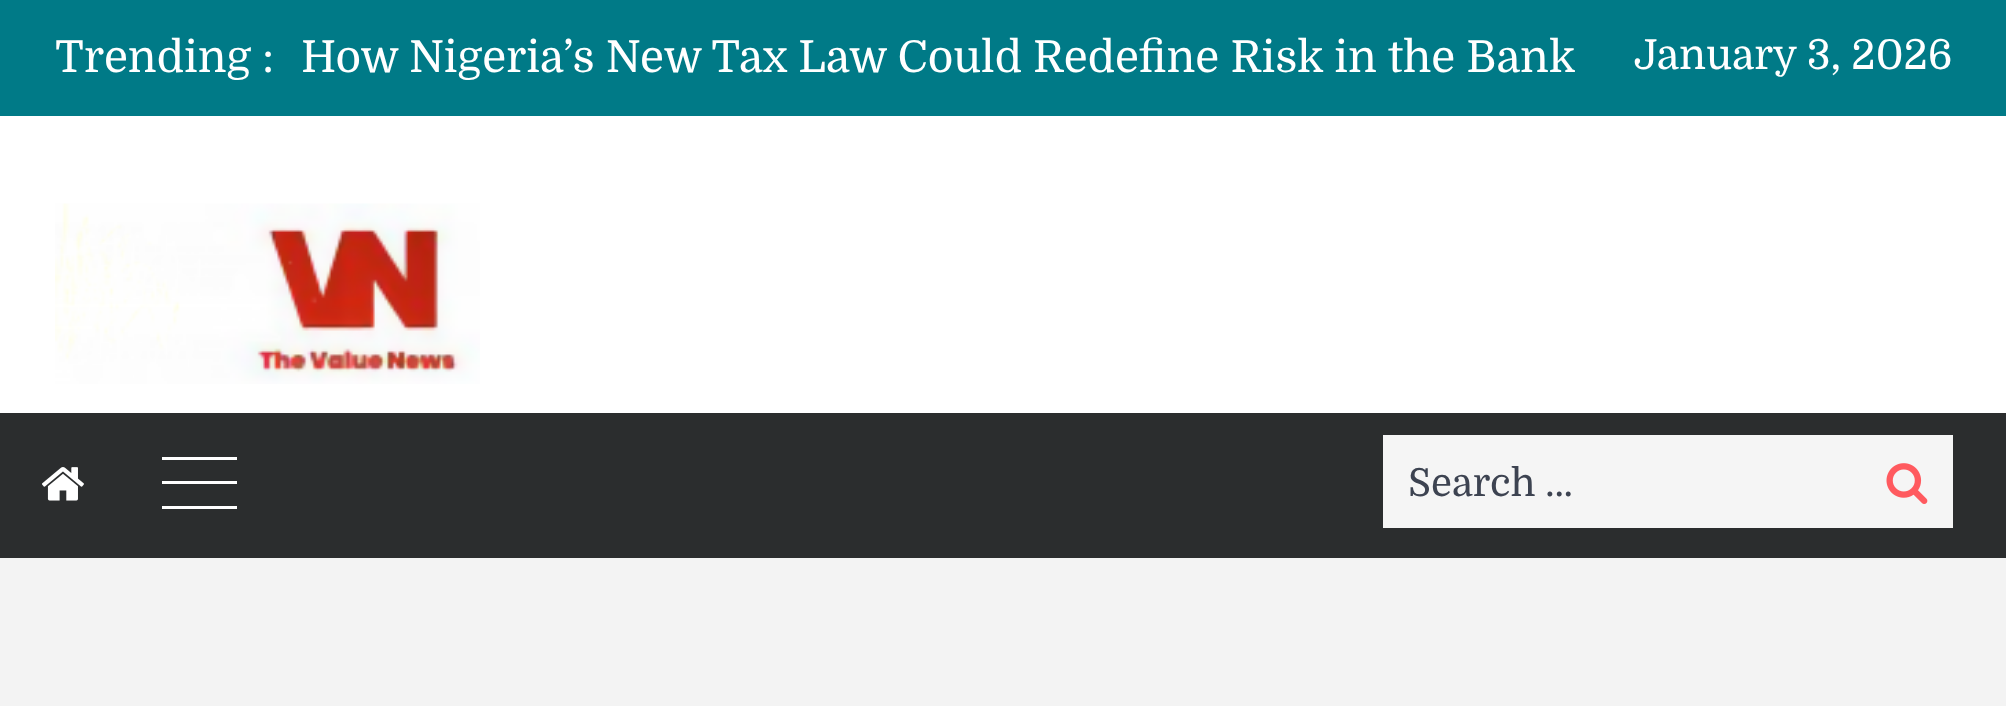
<?xml version="1.0" encoding="UTF-8"?>
<svg xmlns="http://www.w3.org/2000/svg" xmlns:xlink="http://www.w3.org/1999/xlink" width="2006" height="706">
  <rect width="100%" height="100%" fill="#ffffff" />
  <rect width="2006" height="116" fill="#007a87" />
  <image x="55" y="203" width="425" height="181" xlink:href="image1.png" />
  <rect y="413" width="2006" height="145" fill="#2b2d2e" />
  <image x="42" y="467" width="42" height="34" xlink:href="image2.png" />
  <rect x="162" y="457" width="75" height="3" fill="#ffffff" />
  <rect x="162" y="481" width="75" height="3" fill="#ffffff" />
  <rect x="162" y="506" width="75" height="3" fill="#ffffff" />
  <rect x="1383" y="435" width="570" height="93" fill="#f5f5f5" />
  <image x="1886" y="463" width="42" height="41" xlink:href="image3.png" />
  <rect y="558" width="2006" height="148" fill="#f3f3f3" />
  <text x="55" y="72" style="font-family: Domine; font-size: 44px; fill: #ffffff">Trending :</text>
  <text x="301" y="72" style="font-family: Domine; font-size: 44px; fill: #ffffff">How Nigeria’s New Tax Law Could Redefine Risk in the Bank</text>
  <text x="1634" y="69" style="font-family: Domine; font-size: 41.25px; fill: #ffffff">January 3, 2026</text>
  <text x="1408" y="496" style="font-family: Domine; font-size: 38.5px; fill: #3d4351">Search …</text>
</svg>
